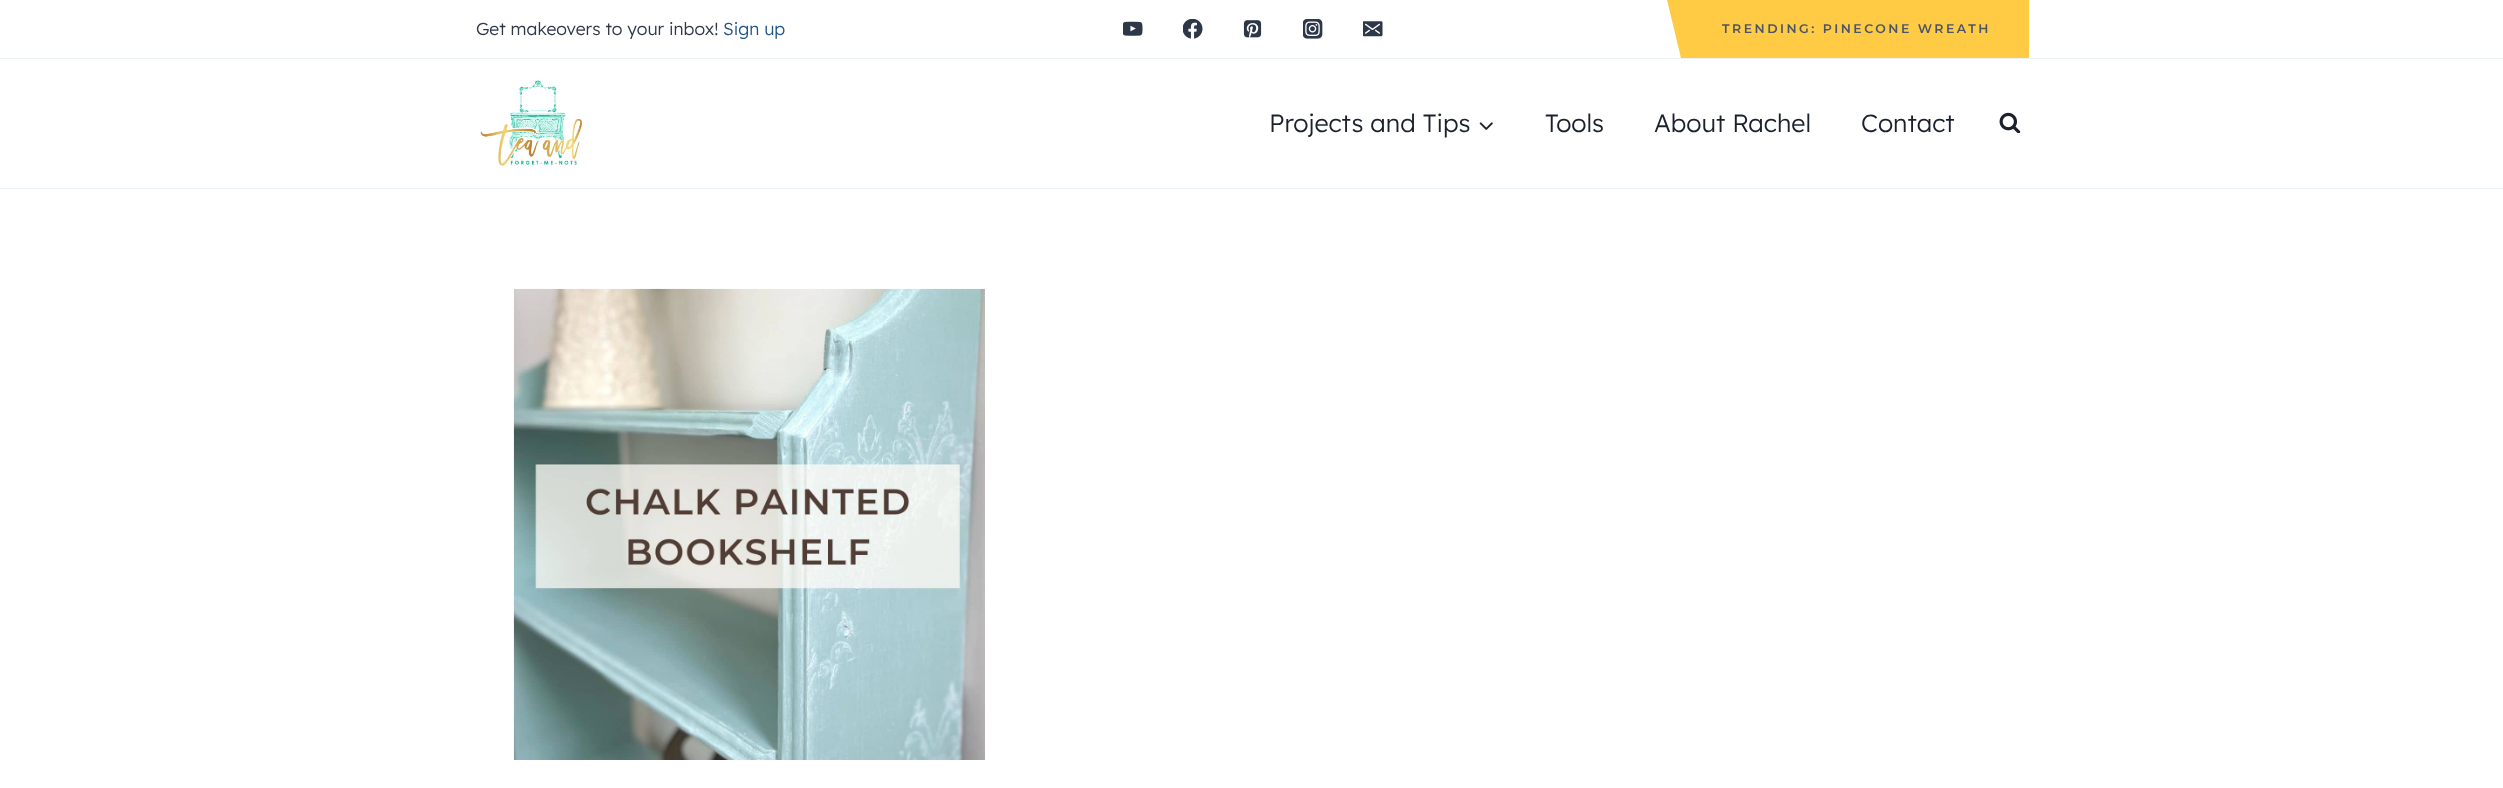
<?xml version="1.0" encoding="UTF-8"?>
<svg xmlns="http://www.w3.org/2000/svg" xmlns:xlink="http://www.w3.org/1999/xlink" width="2503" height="788">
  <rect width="100%" height="100%" fill="#ffffff" />
  <rect y="58" width="2503" height="1" fill="#edf2f7" />
  <image x="1123" y="21" width="20" height="15" xlink:href="image1.png" />
  <image x="1183" y="19" width="20" height="20" xlink:href="image2.png" />
  <image x="1243" y="20" width="19" height="18" xlink:href="image3.png" />
  <image x="1303" y="19" width="20" height="20" xlink:href="image4.png" />
  <image x="1363" y="21" width="20" height="16" xlink:href="image5.png" />
  <path d="M 1667 0 h 344 l 13 58 h -343 z" fill="#ffca44" />
  <rect x="2011" width="18" height="58" fill="#ffca44" />
  <rect y="188" width="2503" height="1" fill="#edf2f7" />
  <image x="480" y="78" width="103" height="88" xlink:href="image6.png" />
  <image x="1479" y="122" width="14" height="8" xlink:href="image7.png" />
  <image x="1999" y="112" width="22" height="21" xlink:href="image8.png" />
  <image x="513" y="288" width="472" height="472" xlink:href="image9.png" />
  <text x="476" y="35" style="font-family: Lexend; font-size: 17.5px; font-weight: 300; fill: #2d3748">Get makeovers to your inbox!</text>
  <text x="723" y="35" style="font-family: Lexend; font-size: 17.5px; font-weight: 300; fill: #215387">Sign up</text>
  <text x="1722" y="33" style="font-family: Montserrat; font-size: 12.5px; font-weight: 100; letter-spacing: 2.5px; fill: #4a5568">TRENDING: PINECONE WREATH</text>
  <text x="1269" y="132" style="font-family: Lexend; font-size: 25px; font-weight: 300; fill: #1a202c">Projects and Tips</text>
  <text x="1545" y="132" style="font-family: Lexend; font-size: 25px; font-weight: 300; fill: #1a202c">Tools</text>
  <text x="1654" y="132" style="font-family: Lexend; font-size: 25px; font-weight: 300; fill: #1a202c">About Rachel</text>
  <text x="1861" y="132" style="font-family: Lexend; font-size: 25px; font-weight: 300; fill: #1a202c">Contact</text>
</svg>
